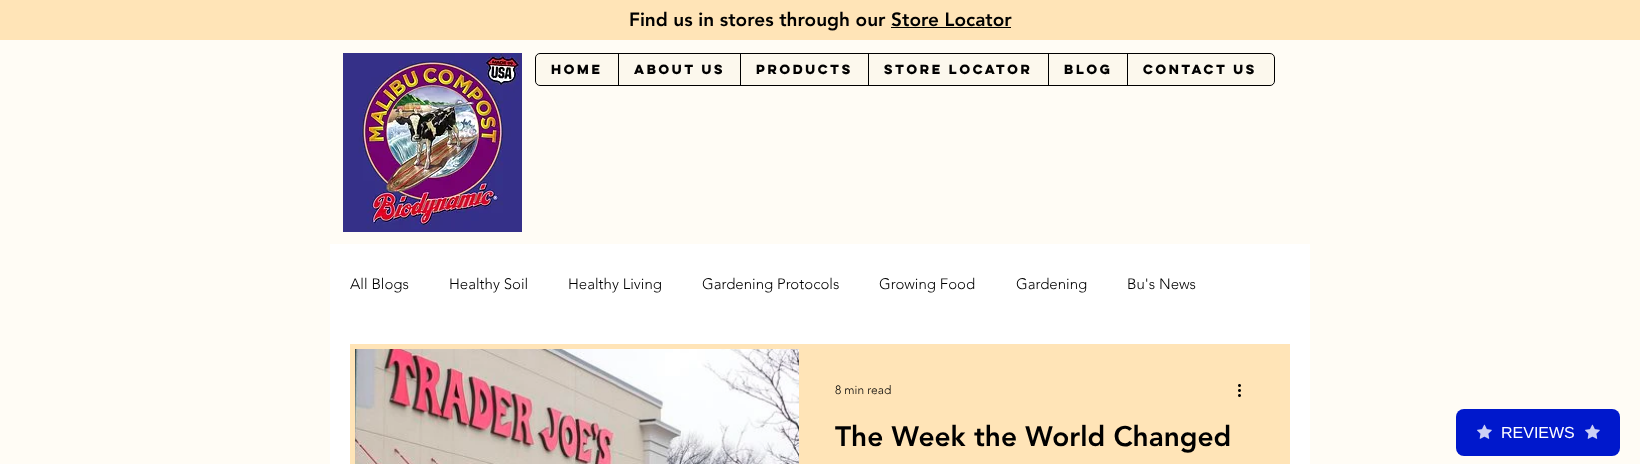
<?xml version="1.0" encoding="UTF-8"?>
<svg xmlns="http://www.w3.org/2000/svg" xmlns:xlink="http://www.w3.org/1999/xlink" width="1640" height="464">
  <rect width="100%" height="100%" fill="#fffcf5" />
  <rect width="1640" height="40" fill="#ffe4b7" />
  <rect x="891" y="27" width="120" height="1" fill="#000000" />
  <image x="343" y="53" width="179" height="179" xlink:href="image1.png" />
  <rect x="535.5" y="53.5" width="739" height="32" rx="4.5" fill="#fcf8ed" stroke="#000000" />
  <rect x="618" y="54" width="1" height="31" fill="#000000" />
  <rect x="740" y="54" width="1" height="31" fill="#000000" />
  <rect x="868" y="54" width="1" height="31" fill="#000000" />
  <rect x="1048" y="54" width="1" height="31" fill="#000000" />
  <rect x="1127" y="54" width="1" height="31" fill="#000000" />
  <rect x="330" y="244" width="980" height="220" fill="#ffffff" />
  <rect x="352.5" y="346.5" width="935" height="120" fill="none" stroke="#ffe4b7" stroke-width="5" />
  <image x="355" y="349" width="444" height="115" xlink:href="image2.png" />
  <rect x="799" y="349" width="486" height="115" fill="#ffe4b7" />
  <image x="1238" y="384" width="3" height="13" xlink:href="image3.png" />
  <rect x="1456" y="409" width="164" height="47" rx="8" fill="#0018cc" />
  <image x="1477" y="424" width="15" height="15" xlink:href="image4.png" />
  <image x="1585" y="424" width="15" height="15" xlink:href="image4.png" />
  <text x="629" y="26" style="font-family: 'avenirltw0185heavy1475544'; font-size: 19px; font-weight: 900; fill: #000000">Find us in stores through our Store Locator</text>
  <text x="551" y="74" style="font-family: 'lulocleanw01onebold'; font-size: 12px; font-weight: bold; fill: #000000">HOME</text>
  <text x="634" y="74" style="font-family: 'lulocleanw01onebold'; font-size: 12px; font-weight: bold; fill: #000000">About Us</text>
  <text x="756" y="74" style="font-family: 'lulocleanw01onebold'; font-size: 12px; font-weight: bold; fill: #000000">Products</text>
  <text x="884" y="74" style="font-family: 'lulocleanw01onebold'; font-size: 12px; font-weight: bold; fill: #000000">Store Locator</text>
  <text x="1064" y="74" style="font-family: 'lulocleanw01onebold'; font-size: 12px; font-weight: bold; fill: #000000">Blog</text>
  <text x="1143" y="74" style="font-family: 'lulocleanw01onebold'; font-size: 12px; font-weight: bold; fill: #000000">Contact Us</text>
  <text x="350" y="289" style="font-family: 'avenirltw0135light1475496'; font-size: 15px; font-weight: 300; fill: #000000">All Blogs</text>
  <text x="449" y="289" style="font-family: 'avenirltw0135light1475496'; font-size: 15px; font-weight: 300; fill: #000000">Healthy Soil</text>
  <text x="568" y="289" style="font-family: 'avenirltw0135light1475496'; font-size: 15px; font-weight: 300; fill: #000000">Healthy Living</text>
  <text x="702" y="289" style="font-family: 'avenirltw0135light1475496'; font-size: 15px; font-weight: 300; fill: #000000">Gardening Protocols</text>
  <text x="879" y="289" style="font-family: 'avenirltw0135light1475496'; font-size: 15px; font-weight: 300; fill: #000000">Growing Food</text>
  <text x="1016" y="289" style="font-family: 'avenirltw0135light1475496'; font-size: 15px; font-weight: 300; fill: #000000">Gardening</text>
  <text x="1127" y="289" style="font-family: 'avenirltw0135light1475496'; font-size: 15px; font-weight: 300; fill: #000000">Bu's News</text>
  <text x="835" y="394" style="font-family: 'avenirltw0135light1475496'; font-size: 12px; font-weight: 300; fill: #000000">8 min read</text>
  <text x="835" y="446" style="font-family: 'avenirltw0185heavy1475544'; font-size: 28px; font-weight: 900; fill: #000000">The Week the World Changed</text>
  <text x="1501" y="438" style="font-family: Liberation Sans; font-size: 16px; fill: #ffffff">REVIEWS</text>
</svg>
